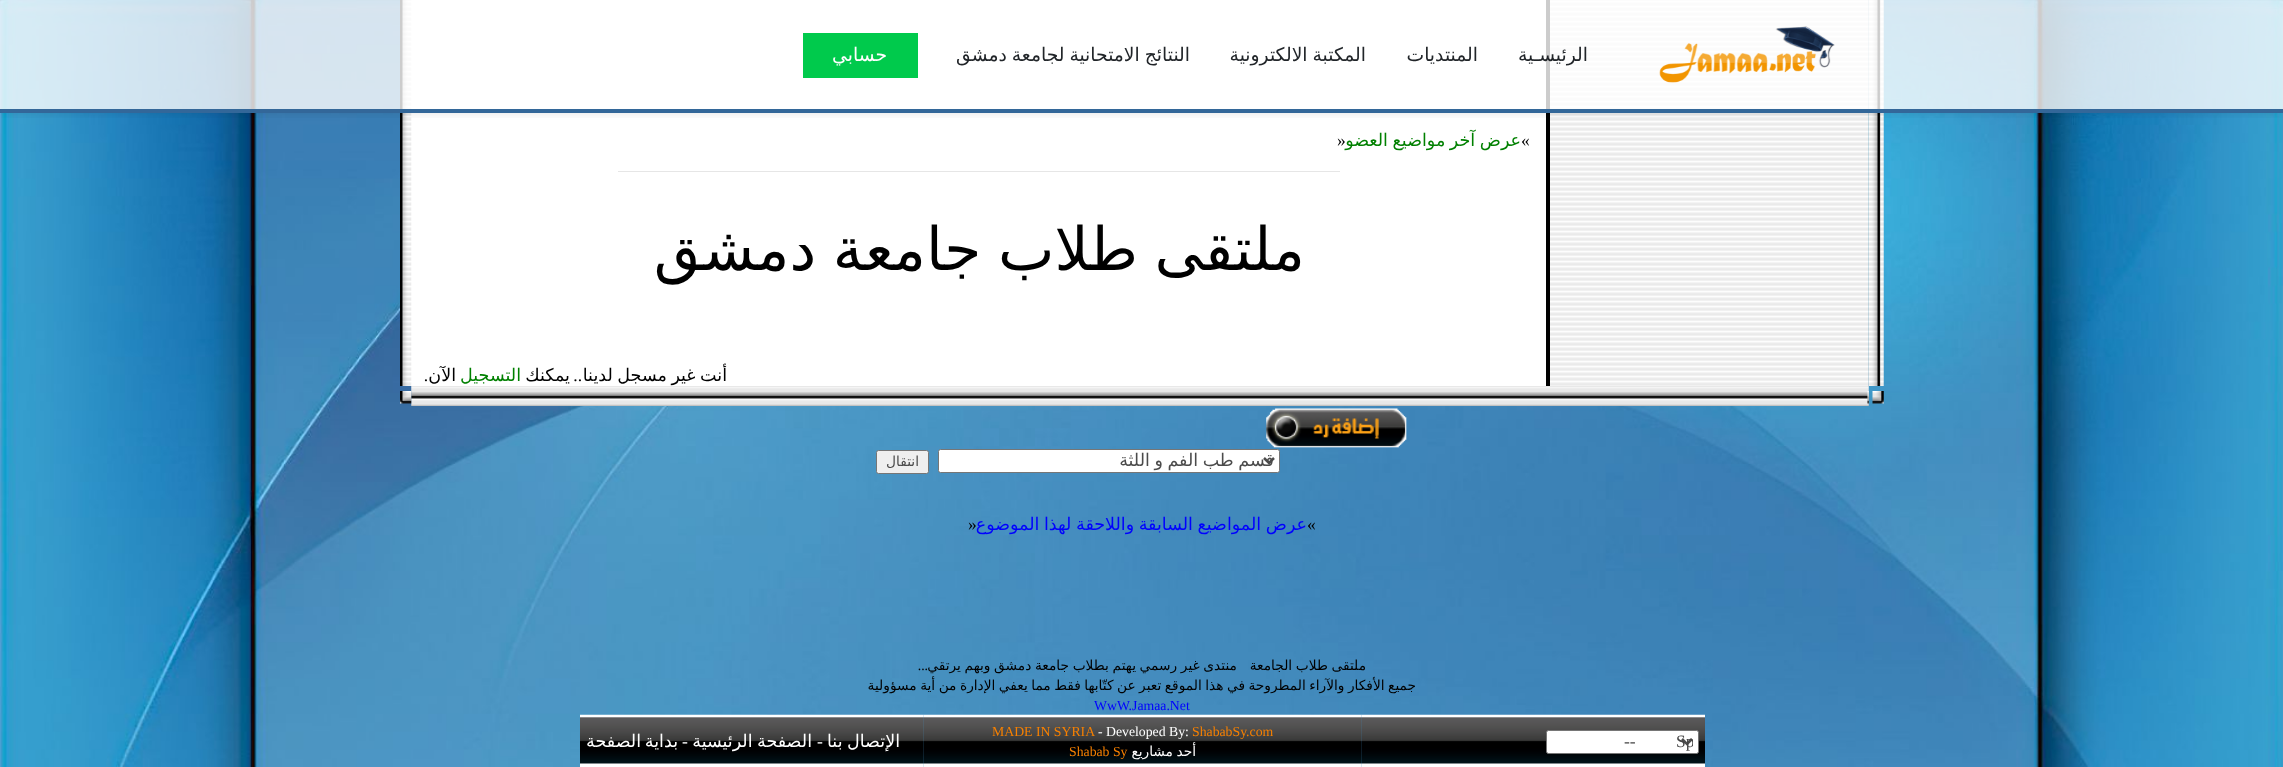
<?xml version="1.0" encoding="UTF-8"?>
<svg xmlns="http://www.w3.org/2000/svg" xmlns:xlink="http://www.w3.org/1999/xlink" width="2283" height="767">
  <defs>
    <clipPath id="clip1"><rect x="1" y="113" width="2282" height="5" /></clipPath>
    <clipPath id="clip2"><rect x="959" y="450" width="315" height="21" /></clipPath>
    <clipPath id="clip3"><rect x="1568" y="731" width="125" height="22" /></clipPath>
  </defs>
  <rect width="100%" height="100%" fill="#ffffff" />
  <image x="0" y="0" width="2283" height="767" xlink:href="image1.png" />
  <image x="1868" y="0" width="16" height="386" xlink:href="image3.png" />
  <image x="1550" y="0" width="319" height="386" xlink:href="image4.png" />
  <rect x="411" width="1135" height="386" fill="#ffffff" />
  <rect x="1546" width="4" height="389" fill="#000000" />
  <image x="400" y="0" width="12" height="386" xlink:href="image5.png" />
  <g clip-path="url(#clip1)">
    <rect x="3" y="4" width="2278" height="107" fill="#000000" fill-opacity="0.15" filter="blur(6px)" />
  </g>
  <rect width="2283" height="109" fill="#ffffff" fill-opacity="0.8" />
  <rect y="109" width="2283" height="4" fill="#336799" />
  <image x="1659" y="26" width="176" height="57" xlink:href="image2.png" />
  <rect x="803" y="33" width="115" height="45" fill="#00ca4c" />
  <rect x="618" y="171" width="722" height="1" fill="#e6e6e6" />
  <image x="1872" y="391" width="12" height="13" xlink:href="image6.png" />
  <image x="411" y="386" width="1458" height="20" xlink:href="image7.png" />
  <image x="1867" y="391" width="2" height="13" xlink:href="image8.png" />
  <image x="400" y="391" width="12" height="13" xlink:href="image9.png" />
  <image x="1266" y="408" width="141" height="40" xlink:href="image10.png" />
  <rect x="938.5" y="449.5" width="341" height="23" rx="2" fill="#ffffff" stroke="#767676" />
  <path d="M 1264 458 l 5 5 l 5 -5" fill="none" stroke="#4d4d4d" stroke-width="2.5" />
  <rect x="876.5" y="450.5" width="52" height="23" rx="2" fill="#efefef" stroke="#767676" />
  <image x="1361" y="714" width="344" height="53" xlink:href="image11.png" />
  <rect x="1546.5" y="730.5" width="152" height="23" rx="2" fill="#ffffff" stroke="#767676" />
  <path d="M 1682 739 l 5 5 l 5 -5" fill="none" stroke="#4d4d4d" stroke-width="2.5" />
  <image x="923" y="714" width="439" height="53" xlink:href="image12.png" />
  <image x="580" y="714" width="344" height="53" xlink:href="image13.png" />
  <text x="1588" y="61" style="font-family: DejaVu Sans; font-size: 18.75px; direction: rtl; fill: #212529">الرئيسـية</text>
  <text x="1478" y="61" style="font-family: DejaVu Sans; font-size: 18.75px; direction: rtl; fill: #212529">المنتديات</text>
  <text x="1366" y="61" word-spacing="-1" style="font-family: DejaVu Sans; font-size: 18.75px; direction: rtl; fill: #212529">المكتبة الالكترونية</text>
  <text x="1190" y="61" word-spacing="-1" style="font-family: DejaVu Sans; font-size: 18.75px; direction: rtl; fill: #212529">النتائج الامتحانية لجامعة دمشق</text>
  <text x="887" y="61" style="font-family: DejaVu Sans; font-size: 18.75px; direction: rtl; fill: #ffffff">حسابي</text>
  <text x="1521" y="146" style="font-family: Liberation Serif; font-size: 17.5px; fill: #000000">«</text>
  <text x="1521" y="146" word-spacing="-1" style="font-family: DejaVu Sans; font-size: 17.5px; direction: rtl; fill: #008000">عرض آخر مواضيع العضو</text>
  <text x="1337" y="146" style="font-family: Liberation Serif; font-size: 17.5px; fill: #000000">»</text>
  <text x="1305" y="270" word-spacing="-2.5" style="font-family: DejaVu Sans; font-size: 60px; direction: rtl; fill: #000000">ملتقى طلاب جامعة دمشق</text>
  <text x="727" y="381" word-spacing="-1" style="font-family: DejaVu Sans; font-size: 17.5px; direction: rtl; fill: #000000">أنت غير مسجل لدينا</text>
  <text x="582" y="381" style="font-family: Liberation Serif; font-size: 17.5px; direction: rtl; fill: #000000">..</text>
  <text x="570" y="381" style="font-family: DejaVu Sans; font-size: 17.5px; direction: rtl; fill: #000000">يمكنك</text>
  <text x="521" y="381" style="font-family: DejaVu Sans; font-size: 17.5px; direction: rtl; fill: #008000">التسجيل</text>
  <text x="456" y="381" style="font-family: DejaVu Sans; font-size: 17.5px; direction: rtl; fill: #000000">الآن</text>
  <text x="428" y="381" style="font-family: Liberation Serif; font-size: 17.5px; direction: rtl; fill: #000000">.</text>
  <g clip-path="url(#clip2)">
    <text x="1274" y="466" word-spacing="-1" style="font-family: DejaVu Sans; font-size: 17.5px; direction: rtl; fill: #4b4b4b">قسم طب الفم و اللثة</text>
  </g>
  <text x="919" y="466" style="font-family: DejaVu Sans; font-size: 13.75px; direction: rtl; fill: #4b4b4b">انتقال</text>
  <text x="968" y="530" style="font-family: Liberation Serif; font-size: 17.5px; fill: #000000">»</text>
  <text x="1307" y="530" style="font-family: Liberation Serif; font-size: 17.5px; fill: #000000">«</text>
  <text x="1307" y="530" word-spacing="-1" style="font-family: DejaVu Sans; font-size: 17.5px; direction: rtl; fill: #0000ff">عرض المواضيع السابقة واللاحقة لهذا الموضوع</text>
  <text x="1366" y="670" word-spacing="-0.75" style="font-family: DejaVu Sans; font-size: 13.75px; direction: rtl; fill: #000000">ملتقى طلاب الجامعة</text>
  <text x="1237" y="670" word-spacing="-0.75" style="font-family: DejaVu Sans; font-size: 13.75px; direction: rtl; fill: #000000">منتدى غير رسمي يهتم بطلاب جامعة دمشق وبهم يرتقي</text>
  <text x="928" y="670" style="font-family: Liberation Serif; font-size: 13.75px; direction: rtl; fill: #000000">...</text>
  <text x="1416" y="690" word-spacing="-0.9" style="font-family: DejaVu Sans; font-size: 13.75px; direction: rtl; fill: #000000">جميع الأفكار والآراء المطروحة في هذا الموقع تعبر عن كتّابها فقط مما يعفي الإدارة من أية مسؤولية</text>
  <text x="1094" y="710" style="font-family: Liberation Serif; font-size: 13.75px; fill: #0000ff">WwW.Jamaa.Net</text>
  <g clip-path="url(#clip3)">
    <text x="1676" y="747" style="font-family: Liberation Serif; font-size: 17.5px; fill: #444444">Sp</text>
  </g>
  <text x="1624" y="747" style="font-family: Liberation Serif; font-size: 17.5px; fill: #4b4b4b">--</text>
  <text x="1192" y="736" style="font-family: Liberation Serif; font-size: 13.75px; fill: #f78000">ShababSy.com</text>
  <text x="1098" y="736" style="font-family: Liberation Serif; font-size: 13.75px; fill: #ffffff">- Developed By:</text>
  <text x="992" y="736" style="font-family: Liberation Serif; font-size: 13.75px; fill: #f78000">MADE IN SYRIA</text>
  <text x="1196" y="756" word-spacing="-0.9" style="font-family: DejaVu Sans; font-size: 13.75px; direction: rtl; fill: #ffffff">أحد مشاريع</text>
  <text x="1069" y="756" style="font-family: Liberation Serif; font-size: 13.75px; fill: #f78000">Shabab Sy</text>
  <text x="900" y="747" word-spacing="-1" style="font-family: DejaVu Sans; font-size: 17.5px; direction: rtl; fill: #ffffff">الإتصال بنا</text>
  <text x="817" y="747" style="font-family: Liberation Serif; font-size: 17.5px; fill: #ffffff">-</text>
  <text x="812" y="747" word-spacing="-1" style="font-family: DejaVu Sans; font-size: 17.5px; direction: rtl; fill: #ffffff">الصفحة الرئيسية</text>
  <text x="682" y="747" style="font-family: Liberation Serif; font-size: 17.5px; fill: #ffffff">-</text>
  <text x="678" y="747" style="font-family: DejaVu Sans; font-size: 17.5px; direction: rtl; fill: #ffffff">بداية</text>
  <text x="641" y="747" style="font-family: DejaVu Sans; font-size: 17.5px; direction: rtl; fill: #ffffff">الصفحة</text>
</svg>
